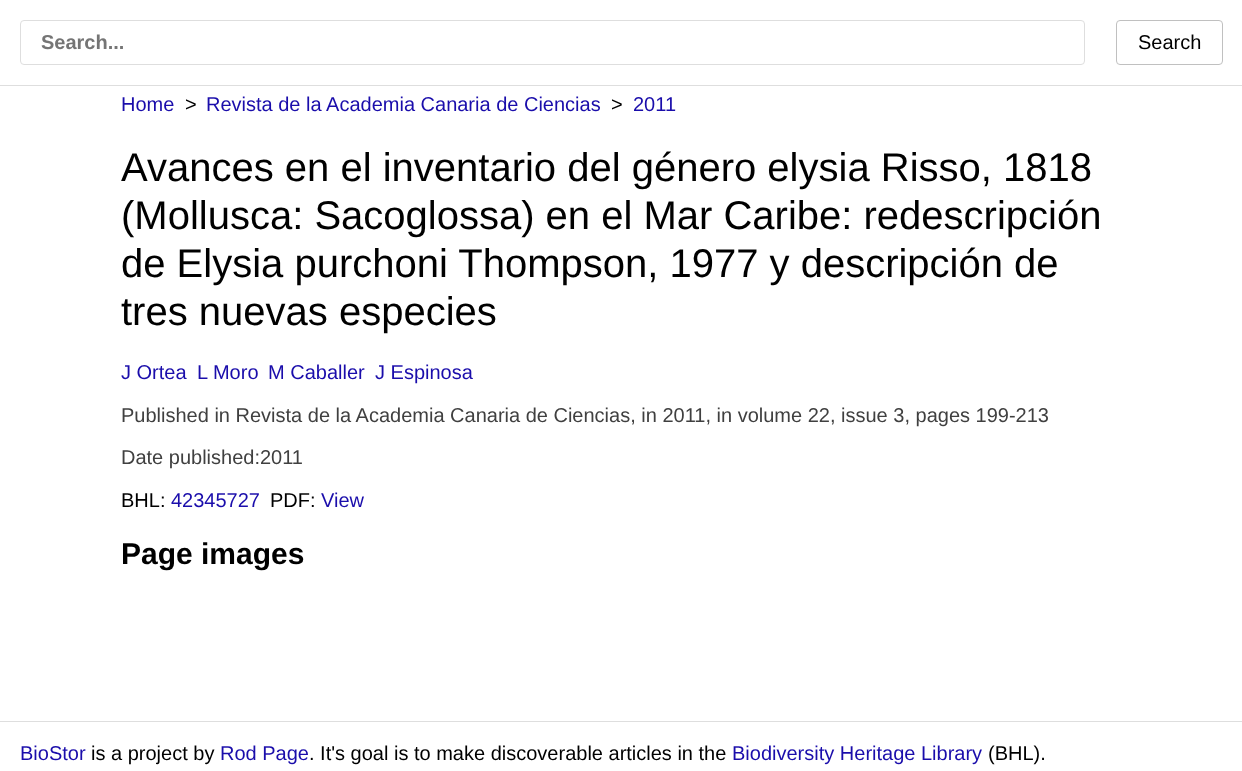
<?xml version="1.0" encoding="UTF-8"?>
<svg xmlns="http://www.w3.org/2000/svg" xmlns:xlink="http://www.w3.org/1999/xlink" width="1242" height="771">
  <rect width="100%" height="100%" fill="#ffffff" />
  <rect y="85" width="1242" height="1" fill="#dedede" />
  <rect x="20.5" y="20.5" width="1064" height="44" rx="3.5" fill="none" stroke="#dedede" />
  <rect x="1116.5" y="20.5" width="106" height="44" rx="3.5" fill="none" stroke="#c0c0c0" />
  <rect y="721" width="1242" height="1" fill="#dedede" />
  <text x="41" y="49" style="font-family: Liberation Sans; font-size: 20px; font-weight: bold; fill: #757575">Search...</text>
  <text x="1138" y="49" style="font-family: Liberation Sans; font-size: 20px; fill: #000000">Search</text>
  <text x="121" y="111" style="font-family: Liberation Sans; font-size: 20px; fill: #1a0dab">Home</text>
  <text x="185" y="111" style="font-family: Liberation Sans; font-size: 20px; fill: #000000">&gt;</text>
  <text x="206" y="111" style="font-family: Liberation Sans; font-size: 20px; fill: #1a0dab">Revista de la Academia Canaria de Ciencias</text>
  <text x="611" y="111" style="font-family: Liberation Sans; font-size: 20px; fill: #000000">&gt;</text>
  <text x="633" y="111" style="font-family: Liberation Sans; font-size: 20px; fill: #1a0dab">2011</text>
  <text x="121" y="181" style="font-family: Liberation Sans; font-size: 40px; fill: #000000">Avances en el inventario del género elysia Risso, 1818</text>
  <text x="121" y="229" style="font-family: Liberation Sans; font-size: 40px; fill: #000000">(Mollusca: Sacoglossa) en el Mar Caribe: redescripción</text>
  <text x="121" y="277" style="font-family: Liberation Sans; font-size: 40px; fill: #000000">de Elysia purchoni Thompson, 1977 y descripción de</text>
  <text x="121" y="325" style="font-family: Liberation Sans; font-size: 40px; fill: #000000">tres nuevas especies</text>
  <text x="121" y="379" style="font-family: Liberation Sans; font-size: 20px; fill: #1a0dab">J Ortea</text>
  <text x="197" y="379" style="font-family: Liberation Sans; font-size: 20px; fill: #1a0dab">L Moro</text>
  <text x="268" y="379" style="font-family: Liberation Sans; font-size: 20px; fill: #1a0dab">M Caballer</text>
  <text x="375" y="379" style="font-family: Liberation Sans; font-size: 20px; fill: #1a0dab">J Espinosa</text>
  <text x="121" y="422" style="font-family: Liberation Sans; font-size: 20px; fill: #404040">Published in Revista de la Academia Canaria de Ciencias, in 2011, in volume 22, issue 3, pages 199-213</text>
  <text x="121" y="464" style="font-family: Liberation Sans; font-size: 20px; fill: #404040">Date published:2011</text>
  <text x="121" y="507" style="font-family: Liberation Sans; font-size: 20px; fill: #000000">BHL:</text>
  <text x="171" y="507" style="font-family: Liberation Sans; font-size: 20px; fill: #1a0dab">42345727</text>
  <text x="270" y="507" style="font-family: Liberation Sans; font-size: 20px; fill: #000000">PDF:</text>
  <text x="321" y="507" style="font-family: Liberation Sans; font-size: 20px; fill: #1a0dab">View</text>
  <text x="121" y="564" style="font-family: Liberation Sans; font-size: 30px; font-weight: bold; fill: #000000">Page images</text>
  <text x="20" y="760" style="font-family: Liberation Sans; font-size: 20px; fill: #1a0dab">BioStor</text>
  <text x="91" y="760" style="font-family: Liberation Sans; font-size: 20px; fill: #000000">is a project by</text>
  <text x="220" y="760" style="font-family: Liberation Sans; font-size: 20px; fill: #1a0dab">Rod Page</text>
  <text x="309" y="760" style="font-family: Liberation Sans; font-size: 20px; fill: #000000">. It's goal is to make discoverable articles in the</text>
  <text x="732" y="760" style="font-family: Liberation Sans; font-size: 20px; fill: #1a0dab">Biodiversity Heritage Library</text>
  <text x="988" y="760" style="font-family: Liberation Sans; font-size: 20px; fill: #000000">(BHL).</text>
</svg>
